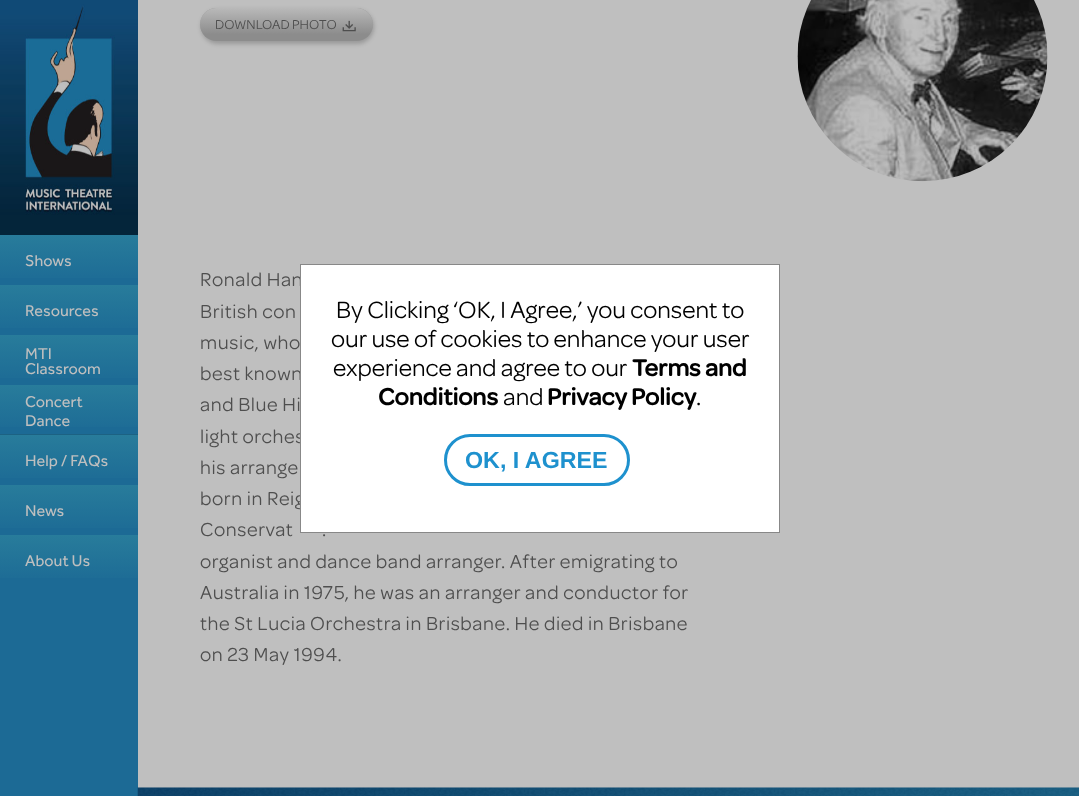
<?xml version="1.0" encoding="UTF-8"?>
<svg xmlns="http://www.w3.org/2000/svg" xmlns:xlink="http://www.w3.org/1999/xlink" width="1079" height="796">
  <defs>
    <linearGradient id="g1" gradientUnits="userSpaceOnUse" x1="69" y1="235" x2="69" y2="285"><stop offset="0" stop-color="#287c9b" /><stop offset="1" stop-color="#1c6a95" /></linearGradient>
    <linearGradient id="g2" gradientUnits="userSpaceOnUse" x1="69" y1="285" x2="69" y2="335"><stop offset="0" stop-color="#287c9b" /><stop offset="1" stop-color="#1c6a95" /></linearGradient>
    <linearGradient id="g3" gradientUnits="userSpaceOnUse" x1="69" y1="335" x2="69" y2="385"><stop offset="0" stop-color="#287c9b" /><stop offset="1" stop-color="#1c6a95" /></linearGradient>
    <linearGradient id="g4" gradientUnits="userSpaceOnUse" x1="69" y1="385" x2="69" y2="434"><stop offset="0" stop-color="#287c9b" /><stop offset="1" stop-color="#1c6a95" /></linearGradient>
    <linearGradient id="g5" gradientUnits="userSpaceOnUse" x1="69" y1="435" x2="69" y2="485"><stop offset="0" stop-color="#287c9b" /><stop offset="1" stop-color="#1c6a95" /></linearGradient>
    <linearGradient id="g6" gradientUnits="userSpaceOnUse" x1="69" y1="485" x2="69" y2="535"><stop offset="0" stop-color="#287c9b" /><stop offset="1" stop-color="#1c6a95" /></linearGradient>
    <linearGradient id="g7" gradientUnits="userSpaceOnUse" x1="69" y1="535" x2="69" y2="585"><stop offset="0" stop-color="#287c9b" /><stop offset="1" stop-color="#1c6a95" /></linearGradient>
    <linearGradient id="g8" gradientUnits="userSpaceOnUse" x1="286" y1="7.5" x2="286" y2="41"><stop offset="0" stop-color="#bfbfbf" stop-opacity="0.9" /><stop offset="0.8" stop-color="#bfbfbf" stop-opacity="0" /></linearGradient>
  </defs>
  <rect width="100%" height="100%" fill="#1c6a95" />
  <image x="0" y="0" width="138" height="235" xlink:href="image1.png" />
  <rect y="235" width="138" height="43" fill="url(#g1)" />
  <rect y="285" width="138" height="43" fill="url(#g2)" />
  <rect y="335" width="138" height="43" fill="url(#g3)" />
  <rect y="385" width="138" height="42" fill="url(#g4)" />
  <rect y="434" width="138" height="1" fill="#1c6283" />
  <rect y="435" width="138" height="43" fill="url(#g5)" />
  <rect y="485" width="138" height="43" fill="url(#g6)" />
  <rect y="535" width="138" height="43" fill="url(#g7)" />
  <rect x="138" width="941" height="788" fill="#bfbfbf" />
  <rect x="201" y="10" width="173" height="34" rx="17" fill="#000000" fill-opacity="0.2" filter="blur(2px)" />
  <rect x="200" y="8" width="173" height="33" rx="16.5" fill="#8c8c8c" />
  <rect x="200" y="8" width="173" height="33" rx="16.5" fill="url(#g8)" />
  <image x="342" y="20" width="14" height="12" xlink:href="image2.png" />
  <image x="797" y="0" width="251" height="182" xlink:href="image3.png" />
  <image x="137" y="787" width="942" height="9" xlink:href="image4.png" />
  <text x="25" y="266" style="font-family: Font; font-size: 16.25px; fill: #bfbfbf">Shows</text>
  <text x="25" y="316" style="font-family: Font; font-size: 16.25px; fill: #bfbfbf">Resources</text>
  <text x="25" y="359" style="font-family: Font; font-size: 16.25px; fill: #bfbfbf">MTI</text>
  <text x="25" y="374" style="font-family: Font; font-size: 16.25px; fill: #bfbfbf">Classroom</text>
  <text x="25" y="407" style="font-family: Font; font-size: 16.25px; fill: #bfbfbf">Concert</text>
  <text x="25" y="426" style="font-family: Font; font-size: 16.25px; fill: #bfbfbf">Dance</text>
  <text x="25" y="466" style="font-family: Font; font-size: 16.25px; fill: #bfbfbf">Help / FAQs</text>
  <text x="25" y="516" style="font-family: Font; font-size: 16.25px; fill: #bfbfbf">News</text>
  <text x="25" y="566" style="font-family: Font; font-size: 16.25px; fill: #bfbfbf">About Us</text>
  <text x="215" y="29" style="font-family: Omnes; font-size: 13.75px; fill: #4e4e4e">DOWNLOAD PHOTO</text>
  <text x="200" y="286" style="font-family: Omnes; font-size: 20px; letter-spacing: 0.6px; fill: #4e4e4e">Ronald Han</text>
  <text x="200" y="318" style="font-family: Omnes; font-size: 20px; letter-spacing: 0.6px; fill: #4e4e4e">British con</text>
  <text x="200" y="349" style="font-family: Omnes; font-size: 20px; letter-spacing: 0.6px; fill: #4e4e4e">music, who</text>
  <text x="200" y="380" style="font-family: Omnes; font-size: 20px; letter-spacing: 0.6px; fill: #4e4e4e">best known</text>
  <text x="200" y="411" style="font-family: Omnes; font-size: 20px; letter-spacing: 0.6px; fill: #4e4e4e">and Blue Hi</text>
  <text x="200" y="443" style="font-family: Omnes; font-size: 20px; letter-spacing: 0.6px; fill: #4e4e4e">light orches</text>
  <text x="200" y="474" style="font-family: Omnes; font-size: 20px; letter-spacing: 0.6px; fill: #4e4e4e">his arrange</text>
  <text x="200" y="505" style="font-family: Omnes; font-size: 20px; letter-spacing: 0.6px; fill: #4e4e4e">born in Reig</text>
  <text x="200" y="536" style="font-family: Omnes; font-size: 20px; letter-spacing: 0.6px; fill: #4e4e4e">Conservat</text>
  <text x="322" y="536" style="font-family: Omnes; font-size: 20px; letter-spacing: 0.6px; fill: #4e4e4e">.</text>
  <text x="200" y="568" style="font-family: Omnes; font-size: 20px; letter-spacing: 0.6px; fill: #4e4e4e">organist and dance band arranger. After emigrating to</text>
  <text x="200" y="599" style="font-family: Omnes; font-size: 20px; letter-spacing: 0.6px; fill: #4e4e4e">Australia in 1975, he was an arranger and conductor for</text>
  <text x="200" y="630" style="font-family: Omnes; font-size: 20px; letter-spacing: 0.6px; fill: #4e4e4e">the St Lucia Orchestra in Brisbane. He died in Brisbane</text>
  <text x="200" y="661" style="font-family: Omnes; font-size: 20px; letter-spacing: 0.6px; fill: #4e4e4e">on 23 May 1994.</text>
  <rect x="300.5" y="264.5" width="479" height="268" fill="#ffffff" stroke="#888888" />
  <text x="336" y="318" style="font-family: Omnes; font-size: 25px; fill: #000000">By Clicking ‘OK, I Agree,’ you consent to</text>
  <text x="331" y="347" style="font-family: Omnes; font-size: 25px; fill: #000000">our use of cookies to enhance your user</text>
  <text x="333" y="376" style="font-family: Omnes; font-size: 25px; fill: #000000">experience and agree to our</text>
  <text x="632" y="376" style="font-family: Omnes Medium; font-size: 25px; font-weight: bold; fill: #000000">Terms and</text>
  <text x="378" y="405" style="font-family: Omnes Medium; font-size: 25px; font-weight: bold; fill: #000000">Conditions</text>
  <text x="503" y="405" style="font-family: Omnes; font-size: 25px; fill: #000000">and</text>
  <text x="547" y="405" style="font-family: Omnes Medium; font-size: 25px; font-weight: bold; fill: #000000">Privacy Policy</text>
  <text x="696" y="405" style="font-family: Omnes; font-size: 25px; fill: #000000">.</text>
  <rect x="445.5" y="435.5" width="183" height="49" rx="24.5" fill="none" stroke="#1e91ce" stroke-width="3" />
  <text x="465" y="468" style="font-family: Liberation Sans; font-size: 23.25px; font-weight: bold; fill: #1e91ce">OK, I AGREE</text>
</svg>
